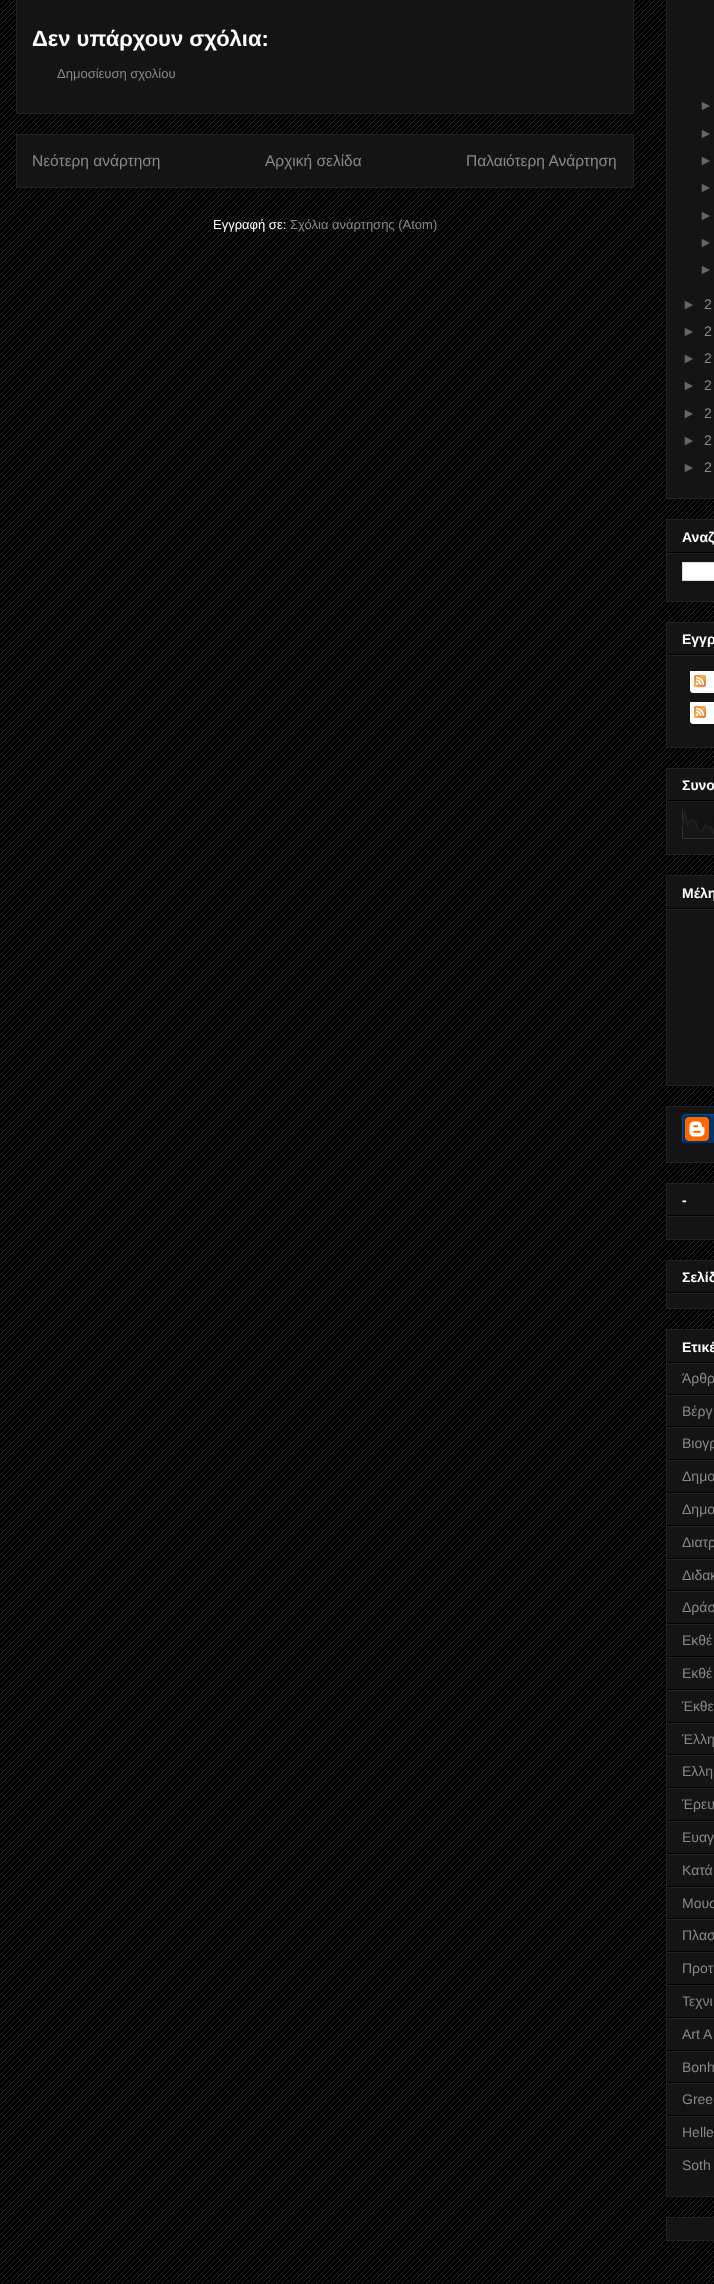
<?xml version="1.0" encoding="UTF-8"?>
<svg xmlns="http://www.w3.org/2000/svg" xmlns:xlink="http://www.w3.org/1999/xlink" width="714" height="2284">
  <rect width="100%" height="100%" fill="#000000" />
  <image x="0" y="0" width="714" height="2284" xlink:href="image1.png" />
  <rect x="16.5" y="-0.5" width="617" height="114" fill="#141414" stroke="#222222" />
  <rect x="16.5" y="134.5" width="617" height="53" fill="#141414" stroke="#222222" />
  <rect x="666.5" y="-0.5" width="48" height="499" fill="#141414" stroke="#222222" />
  <rect x="666.5" y="519.5" width="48" height="82" fill="#141414" stroke="#222222" />
  <rect x="667" y="552" width="47" height="1" fill="#000000" />
  <rect x="667" y="553" width="47" height="1" fill="#222222" />
  <rect x="682.5" y="562.5" width="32" height="18" fill="#ffffff" stroke="#dddddd" />
  <rect x="666.5" y="622.5" width="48" height="125" fill="#141414" stroke="#222222" />
  <rect x="667" y="654" width="47" height="1" fill="#000000" />
  <rect x="667" y="655" width="47" height="1" fill="#222222" />
  <rect x="690" y="671" width="24" height="20" fill="#ffffff" />
  <image x="694" y="675" width="12" height="12" xlink:href="image2.png" />
  <image x="690" y="691" width="24" height="2" xlink:href="image3.png" />
  <rect x="690" y="702" width="24" height="20" fill="#ffffff" />
  <image x="694" y="706" width="12" height="12" xlink:href="image2.png" />
  <image x="690" y="722" width="24" height="2" xlink:href="image3.png" />
  <rect x="666.5" y="768.5" width="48" height="86" fill="#141414" stroke="#222222" />
  <rect x="667" y="800" width="47" height="1" fill="#000000" />
  <rect x="667" y="801" width="47" height="1" fill="#222222" />
  <image x="682" y="809" width="32" height="30" xlink:href="image4.png" />
  <rect x="666.5" y="875.5" width="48" height="210" fill="#141414" stroke="#222222" />
  <rect x="667" y="908" width="47" height="1" fill="#000000" />
  <rect x="667" y="909" width="47" height="1" fill="#222222" />
  <rect x="666.5" y="1106.5" width="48" height="56" fill="#141414" stroke="#222222" />
  <image x="682" y="1114" width="32" height="30" xlink:href="image5.png" />
  <rect x="666.5" y="1183.5" width="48" height="56" fill="#141414" stroke="#222222" />
  <rect x="667" y="1215" width="47" height="1" fill="#000000" />
  <rect x="667" y="1216" width="47" height="1" fill="#222222" />
  <rect x="666.5" y="1260.5" width="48" height="48" fill="#141414" stroke="#222222" />
  <rect x="667" y="1292" width="47" height="1" fill="#000000" />
  <rect x="667" y="1293" width="47" height="1" fill="#222222" />
  <rect x="666.5" y="1329.5" width="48" height="867" fill="#141414" stroke="#222222" />
  <rect x="667" y="1362" width="47" height="1" fill="#000000" />
  <rect x="667" y="1363" width="47" height="1" fill="#222222" />
  <rect x="667" y="1394" width="47" height="1" fill="#000000" />
  <rect x="667" y="1395" width="47" height="1" fill="#222222" />
  <rect x="667" y="1426" width="47" height="1" fill="#000000" />
  <rect x="667" y="1427" width="47" height="1" fill="#222222" />
  <rect x="667" y="1459" width="47" height="1" fill="#000000" />
  <rect x="667" y="1460" width="47" height="1" fill="#222222" />
  <rect x="667" y="1492" width="47" height="1" fill="#000000" />
  <rect x="667" y="1493" width="47" height="1" fill="#222222" />
  <rect x="667" y="1525" width="47" height="1" fill="#000000" />
  <rect x="667" y="1526" width="47" height="1" fill="#222222" />
  <rect x="667" y="1558" width="47" height="1" fill="#000000" />
  <rect x="667" y="1559" width="47" height="1" fill="#222222" />
  <rect x="667" y="1590" width="47" height="1" fill="#000000" />
  <rect x="667" y="1591" width="47" height="1" fill="#222222" />
  <rect x="667" y="1623" width="47" height="1" fill="#000000" />
  <rect x="667" y="1624" width="47" height="1" fill="#222222" />
  <rect x="667" y="1656" width="47" height="1" fill="#000000" />
  <rect x="667" y="1657" width="47" height="1" fill="#222222" />
  <rect x="667" y="1689" width="47" height="1" fill="#000000" />
  <rect x="667" y="1690" width="47" height="1" fill="#222222" />
  <rect x="667" y="1722" width="47" height="1" fill="#000000" />
  <rect x="667" y="1723" width="47" height="1" fill="#222222" />
  <rect x="667" y="1754" width="47" height="1" fill="#000000" />
  <rect x="667" y="1755" width="47" height="1" fill="#222222" />
  <rect x="667" y="1787" width="47" height="1" fill="#000000" />
  <rect x="667" y="1788" width="47" height="1" fill="#222222" />
  <rect x="667" y="1820" width="47" height="1" fill="#000000" />
  <rect x="667" y="1821" width="47" height="1" fill="#222222" />
  <rect x="667" y="1853" width="47" height="1" fill="#000000" />
  <rect x="667" y="1854" width="47" height="1" fill="#222222" />
  <rect x="667" y="1886" width="47" height="1" fill="#000000" />
  <rect x="667" y="1887" width="47" height="1" fill="#222222" />
  <rect x="667" y="1918" width="47" height="1" fill="#000000" />
  <rect x="667" y="1919" width="47" height="1" fill="#222222" />
  <rect x="667" y="1951" width="47" height="1" fill="#000000" />
  <rect x="667" y="1952" width="47" height="1" fill="#222222" />
  <rect x="667" y="1984" width="47" height="1" fill="#000000" />
  <rect x="667" y="1985" width="47" height="1" fill="#222222" />
  <rect x="667" y="2017" width="47" height="1" fill="#000000" />
  <rect x="667" y="2018" width="47" height="1" fill="#222222" />
  <rect x="667" y="2050" width="47" height="1" fill="#000000" />
  <rect x="667" y="2051" width="47" height="1" fill="#222222" />
  <rect x="667" y="2082" width="47" height="1" fill="#000000" />
  <rect x="667" y="2083" width="47" height="1" fill="#222222" />
  <rect x="667" y="2115" width="47" height="1" fill="#000000" />
  <rect x="667" y="2116" width="47" height="1" fill="#222222" />
  <rect x="667" y="2148" width="47" height="1" fill="#000000" />
  <rect x="667" y="2149" width="47" height="1" fill="#222222" />
  <rect x="666.5" y="2217.5" width="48" height="23" fill="#141414" stroke="#222222" />
  <text x="32" y="46" style="font-family: Liberation Sans; font-size: 22px; font-weight: bold; fill: #ffffff">Δεν υπάρχουν σχόλια:</text>
  <text x="57" y="78" style="font-family: Liberation Sans; font-size: 13px; fill: #888888">Δημοσίευση σχολίου</text>
  <text x="32" y="166" style="font-family: Liberation Sans; font-size: 15.5px; fill: #888888">Νεότερη ανάρτηση</text>
  <text x="265" y="166" style="font-family: Liberation Sans; font-size: 15.5px; fill: #888888">Αρχική σελίδα</text>
  <text x="466" y="166" style="font-family: Liberation Sans; font-size: 15.5px; fill: #888888">Παλαιότερη Ανάρτηση</text>
  <text x="213" y="229" style="font-family: Liberation Sans; font-size: 13px; fill: #ffffff">Εγγραφή σε:</text>
  <text x="290" y="229" style="font-family: Liberation Sans; font-size: 13px; fill: #888888">Σχόλια ανάρτησης (Atom)</text>
  <text x="699" y="110" style="font-family: Liberation Sans; font-size: 14px; fill: #666666">►</text>
  <text x="699" y="138" style="font-family: Liberation Sans; font-size: 14px; fill: #666666">►</text>
  <text x="699" y="165" style="font-family: Liberation Sans; font-size: 14px; fill: #666666">►</text>
  <text x="699" y="192" style="font-family: Liberation Sans; font-size: 14px; fill: #666666">►</text>
  <text x="699" y="220" style="font-family: Liberation Sans; font-size: 14px; fill: #666666">►</text>
  <text x="699" y="247" style="font-family: Liberation Sans; font-size: 14px; fill: #666666">►</text>
  <text x="699" y="274" style="font-family: Liberation Sans; font-size: 14px; fill: #666666">►</text>
  <text x="682" y="309" style="font-family: Liberation Sans; font-size: 14px; fill: #666666">►</text>
  <text x="704" y="309" style="font-family: Liberation Sans; font-size: 14px; fill: #888888">2</text>
  <text x="682" y="336" style="font-family: Liberation Sans; font-size: 14px; fill: #666666">►</text>
  <text x="704" y="336" style="font-family: Liberation Sans; font-size: 14px; fill: #888888">2</text>
  <text x="682" y="363" style="font-family: Liberation Sans; font-size: 14px; fill: #666666">►</text>
  <text x="704" y="363" style="font-family: Liberation Sans; font-size: 14px; fill: #888888">2</text>
  <text x="682" y="390" style="font-family: Liberation Sans; font-size: 14px; fill: #666666">►</text>
  <text x="704" y="390" style="font-family: Liberation Sans; font-size: 14px; fill: #888888">2</text>
  <text x="682" y="418" style="font-family: Liberation Sans; font-size: 14px; fill: #666666">►</text>
  <text x="704" y="418" style="font-family: Liberation Sans; font-size: 14px; fill: #888888">2</text>
  <text x="682" y="445" style="font-family: Liberation Sans; font-size: 14px; fill: #666666">►</text>
  <text x="704" y="445" style="font-family: Liberation Sans; font-size: 14px; fill: #888888">2</text>
  <text x="682" y="472" style="font-family: Liberation Sans; font-size: 14px; fill: #666666">►</text>
  <text x="704" y="472" style="font-family: Liberation Sans; font-size: 14px; fill: #888888">2</text>
  <text x="682" y="542" style="font-family: Liberation Sans; font-size: 14px; font-weight: bold; fill: #ffffff">Αναζ</text>
  <text x="682" y="644" style="font-family: Liberation Sans; font-size: 14px; font-weight: bold; fill: #ffffff">Εγγρ</text>
  <text x="682" y="790" style="font-family: Liberation Sans; font-size: 14px; font-weight: bold; fill: #ffffff">Συνο</text>
  <text x="682" y="898" style="font-family: Liberation Sans; font-size: 14px; font-weight: bold; fill: #ffffff">Μέλη</text>
  <text x="682" y="1205" style="font-family: Liberation Sans; font-size: 14px; font-weight: bold; fill: #ffffff">-</text>
  <text x="682" y="1282" style="font-family: Liberation Sans; font-size: 14px; font-weight: bold; fill: #ffffff">Σελίδ</text>
  <text x="682" y="1352" style="font-family: Liberation Sans; font-size: 14px; font-weight: bold; fill: #ffffff">Ετικέ</text>
  <text x="682" y="1383" style="font-family: Liberation Sans; font-size: 14px; fill: #888888">Άρθρ</text>
  <text x="682" y="1416" style="font-family: Liberation Sans; font-size: 14px; fill: #888888">Βέργ</text>
  <text x="682" y="1448" style="font-family: Liberation Sans; font-size: 14px; fill: #888888">Βιογρ</text>
  <text x="682" y="1481" style="font-family: Liberation Sans; font-size: 14px; fill: #888888">Δημο</text>
  <text x="682" y="1514" style="font-family: Liberation Sans; font-size: 14px; fill: #888888">Δημο</text>
  <text x="682" y="1547" style="font-family: Liberation Sans; font-size: 14px; fill: #888888">Διατρ</text>
  <text x="682" y="1580" style="font-family: Liberation Sans; font-size: 14px; fill: #888888">Διδακ</text>
  <text x="682" y="1612" style="font-family: Liberation Sans; font-size: 14px; fill: #888888">Δράσ</text>
  <text x="682" y="1645" style="font-family: Liberation Sans; font-size: 14px; fill: #888888">Εκθέ</text>
  <text x="682" y="1678" style="font-family: Liberation Sans; font-size: 14px; fill: #888888">Εκθέ</text>
  <text x="682" y="1711" style="font-family: Liberation Sans; font-size: 14px; fill: #888888">Έκθε</text>
  <text x="682" y="1744" style="font-family: Liberation Sans; font-size: 14px; fill: #888888">Έλλη</text>
  <text x="682" y="1776" style="font-family: Liberation Sans; font-size: 14px; fill: #888888">Ελλη</text>
  <text x="682" y="1809" style="font-family: Liberation Sans; font-size: 14px; fill: #888888">Έρευ</text>
  <text x="682" y="1842" style="font-family: Liberation Sans; font-size: 14px; fill: #888888">Ευαγ</text>
  <text x="682" y="1875" style="font-family: Liberation Sans; font-size: 14px; fill: #888888">Κατά</text>
  <text x="682" y="1908" style="font-family: Liberation Sans; font-size: 14px; fill: #888888">Μουσ</text>
  <text x="682" y="1940" style="font-family: Liberation Sans; font-size: 14px; fill: #888888">Πλασ</text>
  <text x="682" y="1973" style="font-family: Liberation Sans; font-size: 14px; fill: #888888">Προτ</text>
  <text x="682" y="2006" style="font-family: Liberation Sans; font-size: 14px; fill: #888888">Τεχνι</text>
  <text x="682" y="2039" style="font-family: Liberation Sans; font-size: 14px; fill: #888888">Art A</text>
  <text x="682" y="2072" style="font-family: Liberation Sans; font-size: 14px; fill: #888888">Bonh</text>
  <text x="682" y="2104" style="font-family: Liberation Sans; font-size: 14px; fill: #888888">Gree</text>
  <text x="682" y="2137" style="font-family: Liberation Sans; font-size: 14px; fill: #888888">Helle</text>
  <text x="682" y="2170" style="font-family: Liberation Sans; font-size: 14px; fill: #888888">Soth</text>
</svg>
